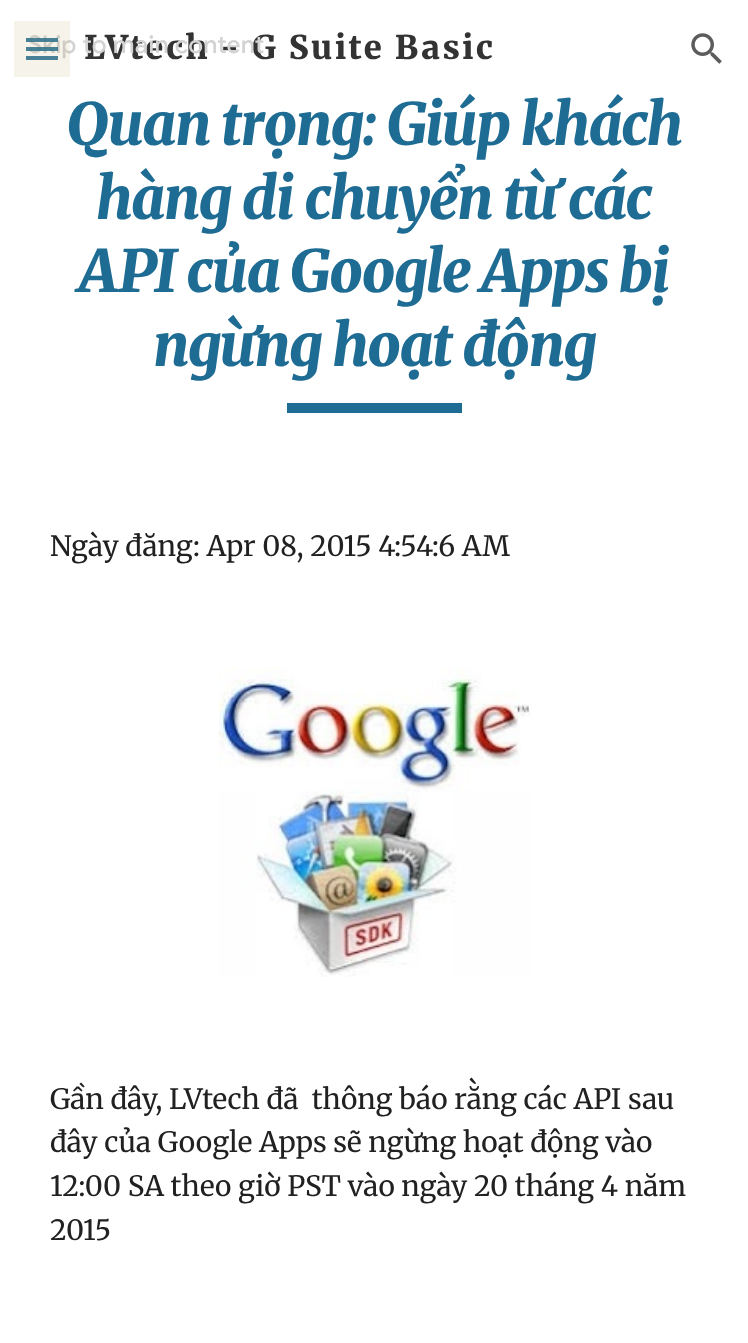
<?xml version="1.0" encoding="UTF-8"?>
<svg xmlns="http://www.w3.org/2000/svg" xmlns:xlink="http://www.w3.org/1999/xlink" width="748" height="1343">
  <rect width="100%" height="100%" fill="#ffffff" />
  <image x="691" y="33" width="31" height="31" xlink:href="image1.png" />
  <rect x="287" y="403" width="175" height="10" fill="#1e6c93" />
  <image x="219" y="667" width="311" height="310" xlink:href="image2.png" />
  <text x="84" y="59" style="font-family: Merriweather; font-size: 32.7px; font-weight: 900; letter-spacing: 2.6px; fill: #333333">LVtech - G Suite Basic</text>
  <text x="66" y="145" style="font-family: Merriweather; font-size: 58.25px; font-weight: 900; font-style: italic; letter-spacing: -1.6px; fill: #1e6c93">Quan trọng: Giúp khách</text>
  <text x="96" y="219" style="font-family: Merriweather; font-size: 58.25px; font-weight: 900; font-style: italic; letter-spacing: -1.6px; fill: #1e6c93">hàng di chuyển từ các</text>
  <text x="79" y="292" style="font-family: Merriweather; font-size: 58.25px; font-weight: 900; font-style: italic; letter-spacing: -1.6px; fill: #1e6c93">API của Google Apps bị</text>
  <text x="153" y="366" style="font-family: Merriweather; font-size: 58.25px; font-weight: 900; font-style: italic; letter-spacing: -1.6px; fill: #1e6c93">ngừng hoạt động</text>
  <text x="50" y="556" style="font-family: Merriweather; font-size: 28px; fill: #212121">Ngày đăng: Apr 08, 2015 4:54:6 AM</text>
  <text x="50" y="1109" style="font-family: Merriweather; font-size: 28px; fill: #212121" xml:space="preserve">Gần đây, LVtech đã  thông báo rằng các API sau</text>
  <text x="50" y="1152" style="font-family: Merriweather; font-size: 28px; fill: #212121">đây của Google Apps sẽ ngừng hoạt động vào</text>
  <text x="50" y="1196" style="font-family: Merriweather; font-size: 28px; fill: #212121">12:00 SA theo giờ PST vào ngày 20 tháng 4 năm</text>
  <text x="50" y="1240" style="font-family: Merriweather; font-size: 28px; fill: #212121">2015</text>
  <text x="28" y="53" style="font-family: Google Sans; font-size: 24.5px; font-weight: 500; letter-spacing: 0.25px; fill: #d3d3d3">Skip to main content</text>
  <rect x="26" y="56" width="32" height="4" fill="#3a7ea1" />
  <rect x="26" y="47" width="32" height="4" fill="#1e6c93" fill-opacity="0.88" />
  <rect x="26" y="38" width="32" height="4" fill="#1e6c93" fill-opacity="0.88" />
  <rect x="14" y="21" width="56" height="56" fill="#b79951" fill-opacity="0.12" />
</svg>
